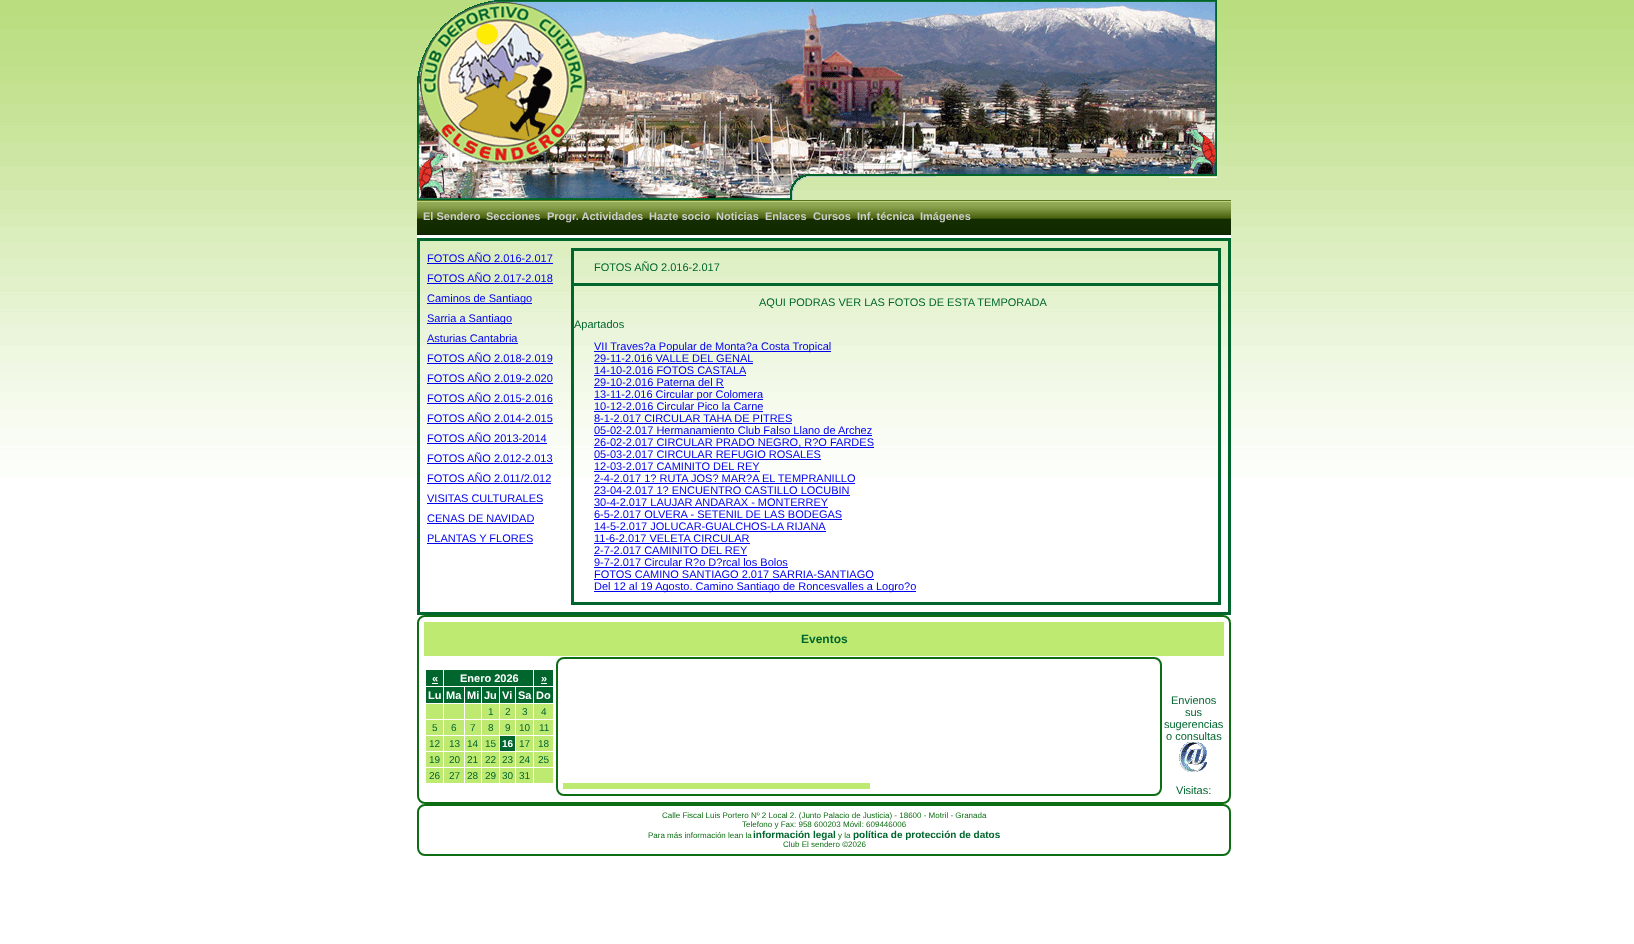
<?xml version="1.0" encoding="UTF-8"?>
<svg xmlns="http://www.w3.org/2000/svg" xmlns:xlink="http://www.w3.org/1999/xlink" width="1634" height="944">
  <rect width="100%" height="100%" fill="#ffffff" />
  <image x="0" y="0" width="1634" height="477" xlink:href="image1.png" />
  <image x="417" y="0" width="800" height="200" xlink:href="image2.png" />
  <rect x="417" y="235" width="814" height="3" fill="#ffffff" />
  <image x="417" y="200" width="814" height="35" xlink:href="image3.png" />
  <rect x="418" y="239" width="812" height="375" fill="none" stroke="#00662e" stroke-width="2" />
  <rect x="419.5" y="240.5" width="809" height="372" fill="none" stroke="#00662e" />
  <rect x="427" y="263" width="126" height="1" fill="#0000ee" />
  <rect x="427" y="283" width="126" height="1" fill="#0000ee" />
  <rect x="427" y="303" width="105" height="1" fill="#0000ee" />
  <rect x="427" y="323" width="85" height="1" fill="#0000ee" />
  <rect x="427" y="343" width="91" height="1" fill="#0000ee" />
  <rect x="427" y="363" width="126" height="1" fill="#0000ee" />
  <rect x="427" y="383" width="126" height="1" fill="#0000ee" />
  <rect x="427" y="403" width="126" height="1" fill="#0000ee" />
  <rect x="427" y="423" width="126" height="1" fill="#0000ee" />
  <rect x="427" y="443" width="120" height="1" fill="#0000ee" />
  <rect x="427" y="463" width="126" height="1" fill="#0000ee" />
  <rect x="427" y="483" width="124" height="1" fill="#0000ee" />
  <rect x="427" y="503" width="116" height="1" fill="#0000ee" />
  <rect x="427" y="523" width="107" height="1" fill="#0000ee" />
  <rect x="427" y="543" width="106" height="1" fill="#0000ee" />
  <rect x="572" y="249" width="648" height="355" fill="none" stroke="#00662e" stroke-width="2" />
  <rect x="573.5" y="250.5" width="645" height="352" fill="none" stroke="#00662e" />
  <rect x="574" y="283" width="644" height="3" fill="#00662e" />
  <rect x="594" y="351" width="237" height="1" fill="#0000ee" />
  <rect x="594" y="363" width="159" height="1" fill="#0000ee" />
  <rect x="594" y="375" width="152" height="1" fill="#0000ee" />
  <rect x="594" y="387" width="130" height="1" fill="#0000ee" />
  <rect x="594" y="399" width="169" height="1" fill="#0000ee" />
  <rect x="594" y="411" width="169" height="1" fill="#0000ee" />
  <rect x="594" y="423" width="198" height="1" fill="#0000ee" />
  <rect x="594" y="435" width="278" height="1" fill="#0000ee" />
  <rect x="594" y="447" width="280" height="1" fill="#0000ee" />
  <rect x="594" y="459" width="227" height="1" fill="#0000ee" />
  <rect x="594" y="471" width="166" height="1" fill="#0000ee" />
  <rect x="594" y="483" width="261" height="1" fill="#0000ee" />
  <rect x="594" y="495" width="256" height="1" fill="#0000ee" />
  <rect x="594" y="507" width="234" height="1" fill="#0000ee" />
  <rect x="594" y="519" width="248" height="1" fill="#0000ee" />
  <rect x="594" y="531" width="232" height="1" fill="#0000ee" />
  <rect x="594" y="543" width="156" height="1" fill="#0000ee" />
  <rect x="594" y="555" width="153" height="1" fill="#0000ee" />
  <rect x="594" y="567" width="194" height="1" fill="#0000ee" />
  <rect x="594" y="579" width="280" height="1" fill="#0000ee" />
  <rect x="594" y="591" width="322" height="1" fill="#0000ee" />
  <rect x="418" y="616" width="812" height="187" rx="7" fill="none" stroke="#0d6d12" stroke-width="2" />
  <rect x="424" y="622" width="800" height="34" fill="#bfea71" />
  <rect x="426" y="670" width="17" height="16" fill="#00662e" />
  <rect x="432" y="683" width="6" height="1" fill="#ffffff" />
  <rect x="444" y="670" width="89" height="16" fill="#00662e" />
  <rect x="534" y="670" width="19" height="16" fill="#00662e" />
  <rect x="541" y="683" width="6" height="1" fill="#ffffff" />
  <rect x="426" y="687" width="17" height="16" fill="#00662e" />
  <rect x="444" y="687" width="20" height="16" fill="#00662e" />
  <rect x="465" y="687" width="16" height="16" fill="#00662e" />
  <rect x="482" y="687" width="17" height="16" fill="#00662e" />
  <rect x="500" y="687" width="15" height="16" fill="#00662e" />
  <rect x="516" y="687" width="17" height="16" fill="#00662e" />
  <rect x="534" y="687" width="19" height="16" fill="#00662e" />
  <rect x="426" y="704" width="17" height="15" fill="#bfea71" />
  <rect x="444" y="704" width="20" height="15" fill="#bfea71" />
  <rect x="465" y="704" width="16" height="15" fill="#bfea71" />
  <rect x="482" y="704" width="17" height="15" fill="#bfea71" />
  <rect x="500" y="704" width="15" height="15" fill="#bfea71" />
  <rect x="516" y="704" width="17" height="15" fill="#bfea71" />
  <rect x="534" y="704" width="19" height="15" fill="#bfea71" />
  <rect x="426" y="720" width="17" height="15" fill="#bfea71" />
  <rect x="444" y="720" width="20" height="15" fill="#bfea71" />
  <rect x="465" y="720" width="16" height="15" fill="#bfea71" />
  <rect x="482" y="720" width="17" height="15" fill="#bfea71" />
  <rect x="500" y="720" width="15" height="15" fill="#bfea71" />
  <rect x="516" y="720" width="17" height="15" fill="#bfea71" />
  <rect x="534" y="720" width="19" height="15" fill="#bfea71" />
  <rect x="426" y="736" width="17" height="15" fill="#bfea71" />
  <rect x="444" y="736" width="20" height="15" fill="#bfea71" />
  <rect x="465" y="736" width="16" height="15" fill="#bfea71" />
  <rect x="482" y="736" width="17" height="15" fill="#bfea71" />
  <rect x="500" y="736" width="15" height="15" fill="#00662e" />
  <rect x="516" y="736" width="17" height="15" fill="#bfea71" />
  <rect x="534" y="736" width="19" height="15" fill="#bfea71" />
  <rect x="426" y="752" width="17" height="15" fill="#bfea71" />
  <rect x="444" y="752" width="20" height="15" fill="#bfea71" />
  <rect x="465" y="752" width="16" height="15" fill="#bfea71" />
  <rect x="482" y="752" width="17" height="15" fill="#bfea71" />
  <rect x="500" y="752" width="15" height="15" fill="#bfea71" />
  <rect x="516" y="752" width="17" height="15" fill="#bfea71" />
  <rect x="534" y="752" width="19" height="15" fill="#bfea71" />
  <rect x="426" y="768" width="17" height="15" fill="#bfea71" />
  <rect x="444" y="768" width="20" height="15" fill="#bfea71" />
  <rect x="465" y="768" width="16" height="15" fill="#bfea71" />
  <rect x="482" y="768" width="17" height="15" fill="#bfea71" />
  <rect x="500" y="768" width="15" height="15" fill="#bfea71" />
  <rect x="516" y="768" width="17" height="15" fill="#bfea71" />
  <rect x="534" y="768" width="19" height="15" fill="#bfea71" />
  <rect x="557" y="658" width="604" height="137" rx="7" fill="none" stroke="#0d6d12" stroke-width="2" />
  <rect x="563" y="783" width="307" height="6" fill="#bfea71" />
  <image x="1179" y="742" width="28" height="30" xlink:href="image4.png" />
  <rect x="418" y="805" width="812" height="50" rx="7" fill="none" stroke="#0d6d12" stroke-width="2" />
  <text x="423" y="220" style="font-family: Liberation Sans; font-size: 11px; font-weight: bold; fill: #cccccc">El Sendero</text>
  <text x="486" y="220" style="font-family: Liberation Sans; font-size: 11px; font-weight: bold; fill: #cccccc">Secciones</text>
  <text x="547" y="220" style="font-family: Liberation Sans; font-size: 11px; font-weight: bold; fill: #cccccc">Progr. Actividades</text>
  <text x="649" y="220" style="font-family: Liberation Sans; font-size: 11px; font-weight: bold; fill: #cccccc">Hazte socio</text>
  <text x="716" y="220" style="font-family: Liberation Sans; font-size: 11px; font-weight: bold; fill: #cccccc">Noticias</text>
  <text x="765" y="220" style="font-family: Liberation Sans; font-size: 11px; font-weight: bold; fill: #cccccc">Enlaces</text>
  <text x="813" y="220" style="font-family: Liberation Sans; font-size: 11px; font-weight: bold; fill: #cccccc">Cursos</text>
  <text x="857" y="220" style="font-family: Liberation Sans; font-size: 11px; font-weight: bold; fill: #cccccc">Inf. técnica</text>
  <rect x="914" y="219" width="1" height="1" fill="#142d00" />
  <text x="920" y="220" style="font-family: Liberation Sans; font-size: 11px; font-weight: bold; fill: #cccccc">Imágenes</text>
  <text x="427" y="262" style="font-family: Liberation Sans; font-size: 11px; fill: #0000ee">FOTOS AÑO 2.016-2.017</text>
  <text x="427" y="282" style="font-family: Liberation Sans; font-size: 11px; fill: #0000ee">FOTOS AÑO 2.017-2.018</text>
  <text x="427" y="302" style="font-family: Liberation Sans; font-size: 11px; fill: #0000ee">Caminos de Santiago</text>
  <text x="427" y="322" style="font-family: Liberation Sans; font-size: 11px; fill: #0000ee">Sarria a Santiago</text>
  <text x="427" y="342" style="font-family: Liberation Sans; font-size: 11px; fill: #0000ee">Asturias Cantabria</text>
  <text x="427" y="362" style="font-family: Liberation Sans; font-size: 11px; fill: #0000ee">FOTOS AÑO 2.018-2.019</text>
  <text x="427" y="382" style="font-family: Liberation Sans; font-size: 11px; fill: #0000ee">FOTOS AÑO 2.019-2.020</text>
  <text x="427" y="402" style="font-family: Liberation Sans; font-size: 11px; fill: #0000ee">FOTOS AÑO 2.015-2.016</text>
  <text x="427" y="422" style="font-family: Liberation Sans; font-size: 11px; fill: #0000ee">FOTOS AÑO 2.014-2.015</text>
  <text x="427" y="442" style="font-family: Liberation Sans; font-size: 11px; fill: #0000ee">FOTOS AÑO 2013-2014</text>
  <text x="427" y="462" style="font-family: Liberation Sans; font-size: 11px; fill: #0000ee">FOTOS</text>
  <text x="467" y="462" style="font-family: Liberation Sans; font-size: 11px; fill: #0000ee">AÑO 2.012-2.013</text>
  <text x="427" y="482" style="font-family: Liberation Sans; font-size: 11px; fill: #0000ee">FOTOS AÑO 2.011/2.012</text>
  <text x="427" y="502" style="font-family: Liberation Sans; font-size: 11px; fill: #0000ee">VISITAS CULTURALES</text>
  <text x="427" y="522" style="font-family: Liberation Sans; font-size: 11px; fill: #0000ee">CENAS DE NAVIDAD</text>
  <text x="427" y="542" style="font-family: Liberation Sans; font-size: 11px; fill: #0000ee">PLANTAS Y FLORES</text>
  <text x="594" y="271" style="font-family: Liberation Sans; font-size: 11px; fill: #00662e">FOTOS AÑO 2.016-2.017</text>
  <text x="759" y="306" style="font-family: Liberation Sans; font-size: 11px; fill: #00662e">AQUI PODRAS VER LAS FOTOS DE ESTA TEMPORADA</text>
  <text x="574" y="328" style="font-family: Liberation Sans; font-size: 11px; fill: #00662e">Apartados</text>
  <text x="594" y="350" style="font-family: Liberation Sans; font-size: 11px; fill: #0000ee">VII Traves?a Popular de Monta?a Costa Tropical</text>
  <text x="594" y="362" style="font-family: Liberation Sans; font-size: 11px; fill: #0000ee">29-11-2.016 VALLE DEL GENAL</text>
  <text x="594" y="374" style="font-family: Liberation Sans; font-size: 11px; fill: #0000ee">14-10-2.016 FOTOS CASTALA</text>
  <text x="594" y="386" style="font-family: Liberation Sans; font-size: 11px; fill: #0000ee">29-10-2.016 Paterna del R</text>
  <text x="594" y="398" style="font-family: Liberation Sans; font-size: 11px; fill: #0000ee">13-11-2.016 Circular por Colomera</text>
  <text x="594" y="410" style="font-family: Liberation Sans; font-size: 11px; fill: #0000ee">10-12-2.016 Circular Pico la Carne</text>
  <text x="594" y="422" style="font-family: Liberation Sans; font-size: 11px; fill: #0000ee">8-1-2.017 CIRCULAR TAHA DE PITRES</text>
  <text x="594" y="434" style="font-family: Liberation Sans; font-size: 11px; fill: #0000ee">05-02-2.017 Hermanamiento Club Falso Llano de Archez</text>
  <text x="594" y="446" style="font-family: Liberation Sans; font-size: 11px; fill: #0000ee">26-02-2.017 CIRCULAR PRADO NEGRO, R?O FARDES</text>
  <text x="594" y="458" style="font-family: Liberation Sans; font-size: 11px; fill: #0000ee">05-03-2.017 CIRCULAR REFUGIO ROSALES</text>
  <text x="594" y="470" style="font-family: Liberation Sans; font-size: 11px; fill: #0000ee">12-03-2.017 CAMINITO DEL REY</text>
  <text x="594" y="482" style="font-family: Liberation Sans; font-size: 11px; fill: #0000ee">2-4-2.017 1? RUTA JOS? MAR?A EL TEMPRANILLO</text>
  <text x="594" y="494" style="font-family: Liberation Sans; font-size: 11px; fill: #0000ee">23-04-2.017 1? ENCUENTRO CASTILLO LOCUBIN</text>
  <text x="594" y="506" style="font-family: Liberation Sans; font-size: 11px; fill: #0000ee">30-4-2.017 LAUJAR ANDARAX - MONTERREY</text>
  <text x="594" y="518" style="font-family: Liberation Sans; font-size: 11px; fill: #0000ee">6-5-2.017 OLVERA - SETENIL DE LAS BODEGAS</text>
  <text x="594" y="530" style="font-family: Liberation Sans; font-size: 11px; fill: #0000ee">14-5-2.017 JOLUCAR-GUALCHOS-LA RIJANA</text>
  <text x="594" y="542" style="font-family: Liberation Sans; font-size: 11px; fill: #0000ee">11-6-2.017 VELETA CIRCULAR</text>
  <text x="594" y="554" style="font-family: Liberation Sans; font-size: 11px; fill: #0000ee">2-7-2.017 CAMINITO DEL REY</text>
  <text x="594" y="566" style="font-family: Liberation Sans; font-size: 11px; fill: #0000ee">9-7-2.017 Circular R?o D?rcal los Bolos</text>
  <text x="594" y="578" style="font-family: Liberation Sans; font-size: 11px; fill: #0000ee">FOTOS CAMINO SANTIAGO 2.017 SARRIA-SANTIAGO</text>
  <text x="594" y="590" style="font-family: Liberation Sans; font-size: 11px; fill: #0000ee">Del 12 al 19 Agosto. Camino Santiago de Roncesvalles a Logro?o</text>
  <text x="801" y="643" style="font-family: Liberation Sans; font-size: 12px; font-weight: bold; fill: #00662e">Eventos</text>
  <text x="432" y="682" style="font-family: Liberation Sans; font-size: 11px; font-weight: bold; fill: #ffffff">«</text>
  <text x="460" y="682" style="font-family: Liberation Sans; font-size: 11px; font-weight: bold; fill: #ffffff">Enero 2026</text>
  <text x="541" y="682" style="font-family: Liberation Sans; font-size: 11px; font-weight: bold; fill: #ffffff">»</text>
  <text x="428" y="699" style="font-family: Liberation Sans; font-size: 11px; font-weight: bold; fill: #ffffff">Lu</text>
  <text x="446" y="699" style="font-family: Liberation Sans; font-size: 11px; font-weight: bold; fill: #ffffff">Ma</text>
  <text x="467" y="699" style="font-family: Liberation Sans; font-size: 11px; font-weight: bold; fill: #ffffff">Mi</text>
  <text x="484" y="699" style="font-family: Liberation Sans; font-size: 11px; font-weight: bold; fill: #ffffff">Ju</text>
  <text x="502" y="699" style="font-family: Liberation Sans; font-size: 11px; font-weight: bold; fill: #ffffff">Vi</text>
  <text x="518" y="699" style="font-family: Liberation Sans; font-size: 11px; font-weight: bold; fill: #ffffff">Sa</text>
  <text x="536" y="699" style="font-family: Liberation Sans; font-size: 11px; font-weight: bold; fill: #ffffff">Do</text>
  <text x="488" y="715" style="font-family: Liberation Sans; font-size: 10px; fill: #00662e">1</text>
  <text x="505" y="715" style="font-family: Liberation Sans; font-size: 10px; fill: #00662e">2</text>
  <text x="522" y="715" style="font-family: Liberation Sans; font-size: 10px; fill: #00662e">3</text>
  <text x="541" y="715" style="font-family: Liberation Sans; font-size: 10px; fill: #00662e">4</text>
  <text x="432" y="731" style="font-family: Liberation Sans; font-size: 10px; fill: #00662e">5</text>
  <text x="451" y="731" style="font-family: Liberation Sans; font-size: 10px; fill: #00662e">6</text>
  <text x="470" y="731" style="font-family: Liberation Sans; font-size: 10px; fill: #00662e">7</text>
  <text x="488" y="731" style="font-family: Liberation Sans; font-size: 10px; fill: #00662e">8</text>
  <text x="505" y="731" style="font-family: Liberation Sans; font-size: 10px; fill: #00662e">9</text>
  <text x="519" y="731" style="font-family: Liberation Sans; font-size: 10px; fill: #00662e">10</text>
  <text x="539" y="731" style="font-family: Liberation Sans; font-size: 10px; fill: #00662e">11</text>
  <text x="429" y="747" style="font-family: Liberation Sans; font-size: 10px; fill: #00662e">12</text>
  <text x="449" y="747" style="font-family: Liberation Sans; font-size: 10px; fill: #00662e">13</text>
  <text x="467" y="747" style="font-family: Liberation Sans; font-size: 10px; fill: #00662e">14</text>
  <text x="485" y="747" style="font-family: Liberation Sans; font-size: 10px; fill: #00662e">15</text>
  <text x="502" y="747" style="font-family: Liberation Sans; font-size: 10px; font-weight: bold; fill: #ffffff">16</text>
  <text x="519" y="747" style="font-family: Liberation Sans; font-size: 10px; fill: #00662e">17</text>
  <text x="538" y="747" style="font-family: Liberation Sans; font-size: 10px; fill: #00662e">18</text>
  <text x="429" y="763" style="font-family: Liberation Sans; font-size: 10px; fill: #00662e">19</text>
  <text x="449" y="763" style="font-family: Liberation Sans; font-size: 10px; fill: #00662e">20</text>
  <text x="467" y="763" style="font-family: Liberation Sans; font-size: 10px; fill: #00662e">21</text>
  <text x="485" y="763" style="font-family: Liberation Sans; font-size: 10px; fill: #00662e">22</text>
  <text x="502" y="763" style="font-family: Liberation Sans; font-size: 10px; fill: #00662e">23</text>
  <text x="519" y="763" style="font-family: Liberation Sans; font-size: 10px; fill: #00662e">24</text>
  <text x="538" y="763" style="font-family: Liberation Sans; font-size: 10px; fill: #00662e">25</text>
  <text x="429" y="779" style="font-family: Liberation Sans; font-size: 10px; fill: #00662e">26</text>
  <text x="449" y="779" style="font-family: Liberation Sans; font-size: 10px; fill: #00662e">27</text>
  <text x="467" y="779" style="font-family: Liberation Sans; font-size: 10px; fill: #00662e">28</text>
  <text x="485" y="779" style="font-family: Liberation Sans; font-size: 10px; fill: #00662e">29</text>
  <text x="502" y="779" style="font-family: Liberation Sans; font-size: 10px; fill: #00662e">30</text>
  <text x="519" y="779" style="font-family: Liberation Sans; font-size: 10px; fill: #00662e">31</text>
  <text x="1171" y="704" style="font-family: Liberation Sans; font-size: 11px; fill: #00662e">Envienos</text>
  <text x="1185" y="716" style="font-family: Liberation Sans; font-size: 11px; fill: #00662e">sus</text>
  <text x="1164" y="728" style="font-family: Liberation Sans; font-size: 11px; fill: #00662e">sugerencias</text>
  <text x="1166" y="740" style="font-family: Liberation Sans; font-size: 11px; fill: #00662e">o consultas</text>
  <text x="1176" y="794" style="font-family: Liberation Sans; font-size: 11px; fill: #00662e">Visitas:</text>
  <text x="662" y="818" style="font-family: Liberation Sans; font-size: 8px; fill: #0d6d12">Calle Fiscal Luis Portero Nº 2 Local 2. (Junto Palacio de Justicia) - 18600 - Motril - Granada</text>
  <text x="742" y="827" style="font-family: Liberation Sans; font-size: 8px; fill: #0d6d12">Telefono y Fax: 958 600203 Móvil: 609446006</text>
  <text x="648" y="838" style="font-family: Liberation Sans; font-size: 8px; fill: #0d6d12">Para más información lean la</text>
  <text x="753" y="838" style="font-family: Liberation Sans; font-size: 10px; font-weight: bold; fill: #00662e">información legal</text>
  <text x="838" y="838" style="font-family: Liberation Sans; font-size: 8px; fill: #0d6d12">y la</text>
  <text x="853" y="838" style="font-family: Liberation Sans; font-size: 10px; font-weight: bold; fill: #00662e">política de protección de datos</text>
  <text x="783" y="847" style="font-family: Liberation Sans; font-size: 8px; fill: #0d6d12">Club El sendero ©2026</text>
</svg>
